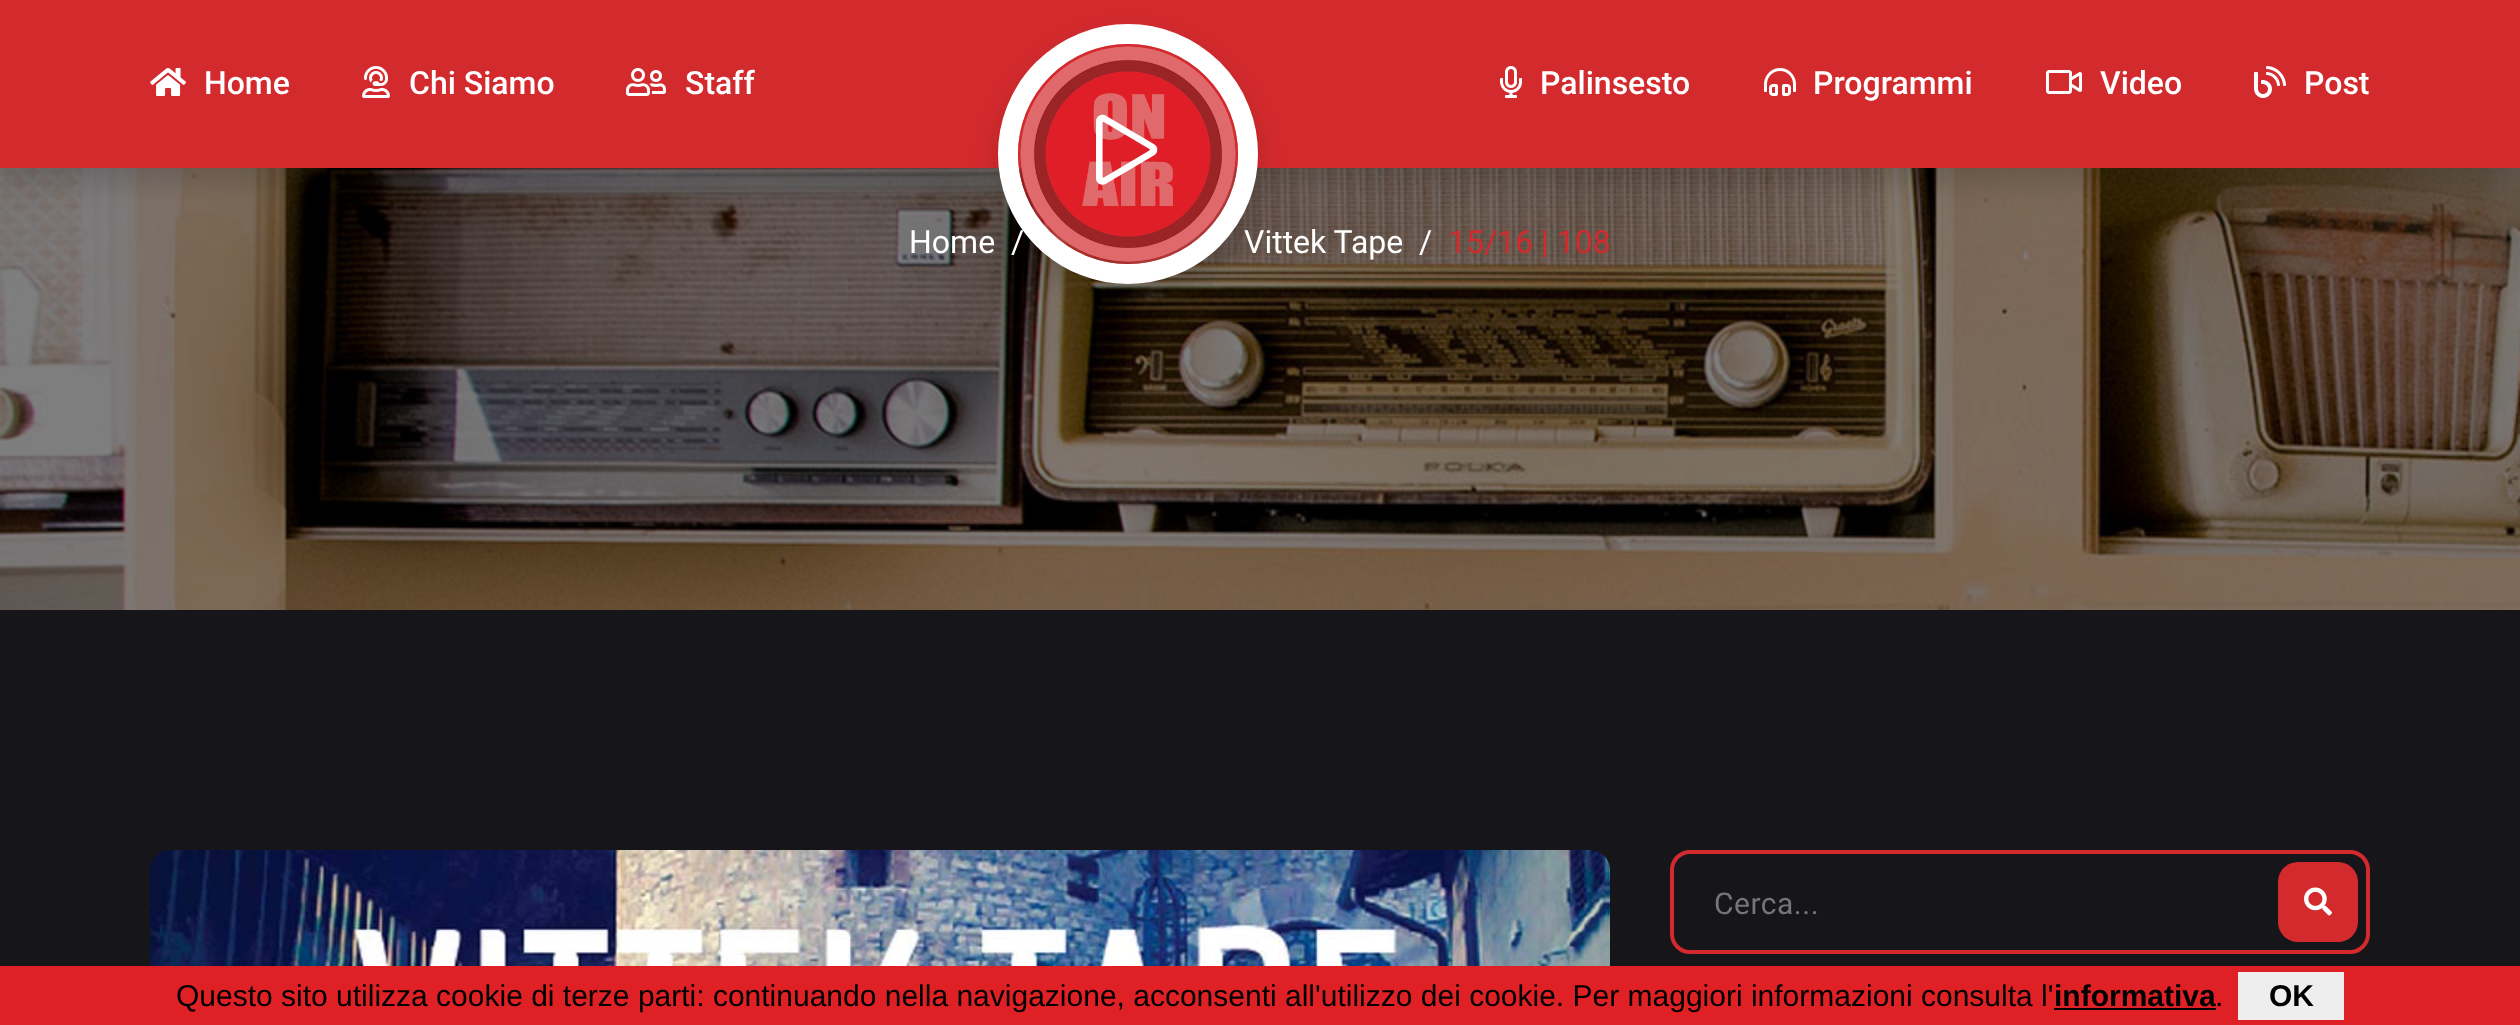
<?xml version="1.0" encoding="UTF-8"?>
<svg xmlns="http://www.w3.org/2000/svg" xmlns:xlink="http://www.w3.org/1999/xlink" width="2520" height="1025">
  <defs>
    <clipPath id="clip1"><path d="M 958 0 h 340 v 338 h -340 z m 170 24 c 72 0 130 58 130 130 c 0 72 -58 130 -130 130 c -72 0 -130 -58 -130 -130 c 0 -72 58 -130 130 -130 z" clip-rule="evenodd" /></clipPath>
  </defs>
  <rect width="100%" height="100%" fill="#16151a" />
  <image x="0" y="168" width="2520" height="442" xlink:href="image10.png" />
  <rect y="14" width="2520" height="168" fill="#000000" fill-opacity="0.15" filter="blur(13px)" />
  <rect width="2520" height="168" fill="#d32a2e" />
  <image x="150" y="68" width="36" height="28" xlink:href="image1.png" />
  <image x="362" y="66" width="28" height="32" xlink:href="image2.png" />
  <image x="626" y="68" width="40" height="28" xlink:href="image3.png" />
  <g clip-path="url(#clip1)">
    <rect x="998" y="38" width="260" height="260" rx="130" fill="#000000" fill-opacity="0.15" filter="blur(13px)" />
  </g>
  <image x="1500" y="66" width="22" height="32" xlink:href="image6.png" />
  <image x="1764" y="68" width="32" height="28" xlink:href="image7.png" />
  <image x="2046" y="70" width="36" height="24" xlink:href="image8.png" />
  <image x="2254" y="66" width="32" height="32" xlink:href="image9.png" />
  <image x="150" y="850" width="1460" height="116" xlink:href="image11.png" />
  <rect x="1672" y="852" width="696" height="100" rx="18" fill="none" stroke="#d32a2e" stroke-width="4" />
  <rect x="2278" y="862" width="80" height="80" rx="20" fill="#d32a2e" />
  <image x="2304" y="887" width="28" height="29" xlink:href="image12.png" />
  <rect y="966" width="2520" height="59" fill="#df2126" />
  <rect x="2054" y="1008" width="162" height="2" fill="#000000" />
  <rect x="2238" y="972" width="106" height="48" fill="#eeeeee" />
  <text x="204" y="94" style="font-family: Roboto; font-size: 32px; font-weight: 500; fill: #ffffff">Home</text>
  <text x="409" y="94" style="font-family: Roboto; font-size: 32px; font-weight: 500; fill: #ffffff">Chi Siamo</text>
  <text x="685" y="94" style="font-family: Roboto; font-size: 32px; font-weight: 500; fill: #ffffff">Staff</text>
  <text x="1540" y="94" style="font-family: Roboto; font-size: 32px; font-weight: 500; fill: #ffffff">Palinsesto</text>
  <text x="1813" y="94" style="font-family: Roboto; font-size: 32px; font-weight: 500; fill: #ffffff">Programmi</text>
  <text x="2100" y="94" style="font-family: Roboto; font-size: 32px; font-weight: 500; fill: #ffffff">Video</text>
  <text x="2304" y="94" style="font-family: Roboto; font-size: 32px; font-weight: 500; fill: #ffffff">Post</text>
  <text x="909" y="253" style="font-family: Roboto; font-size: 32px; fill: #ffffff">Home</text>
  <text x="1011" y="253" style="font-family: Roboto; font-size: 32px; fill: #ffffff">/</text>
  <image x="1020" y="46" width="216" height="216" xlink:href="image4.png" />
  <circle cx="1128" cy="154" r="120" fill="none" stroke="#ffffff" stroke-width="20" />
  <circle cx="1128" cy="154" r="110" fill="#d32a2e" fill-opacity="0.7" />
  <image x="1096" y="114" width="62" height="71" xlink:href="image5.png" />
  <text x="1244" y="253" style="font-family: Roboto; font-size: 32px; fill: #ffffff">Vittek Tape</text>
  <text x="1419" y="253" style="font-family: Roboto; font-size: 32px; fill: #ffffff">/</text>
  <text x="1448" y="253" style="font-family: Roboto; font-size: 32px; fill: #d32a2e">15/16 | 108</text>
  <text x="1714" y="914" style="font-family: Roboto; font-size: 30px; letter-spacing: 0.5px; fill: #757575">Cerca...</text>
  <text x="176" y="1006" style="font-family: Liberation Sans; font-size: 30px; fill: #000000">Questo sito utilizza cookie di terze parti: continuando nella navigazione, acconsenti all'utilizzo dei cookie. Per maggiori informazioni consulta l'</text>
  <text x="2054" y="1006" style="font-family: Liberation Sans; font-size: 30px; font-weight: bold; fill: #000000">informativa</text>
  <text x="2215" y="1006" style="font-family: Liberation Sans; font-size: 30px; fill: #000000">.</text>
  <text x="2269" y="1006" style="font-family: Liberation Sans; font-size: 30px; font-weight: bold; fill: #000000">OK</text>
</svg>
